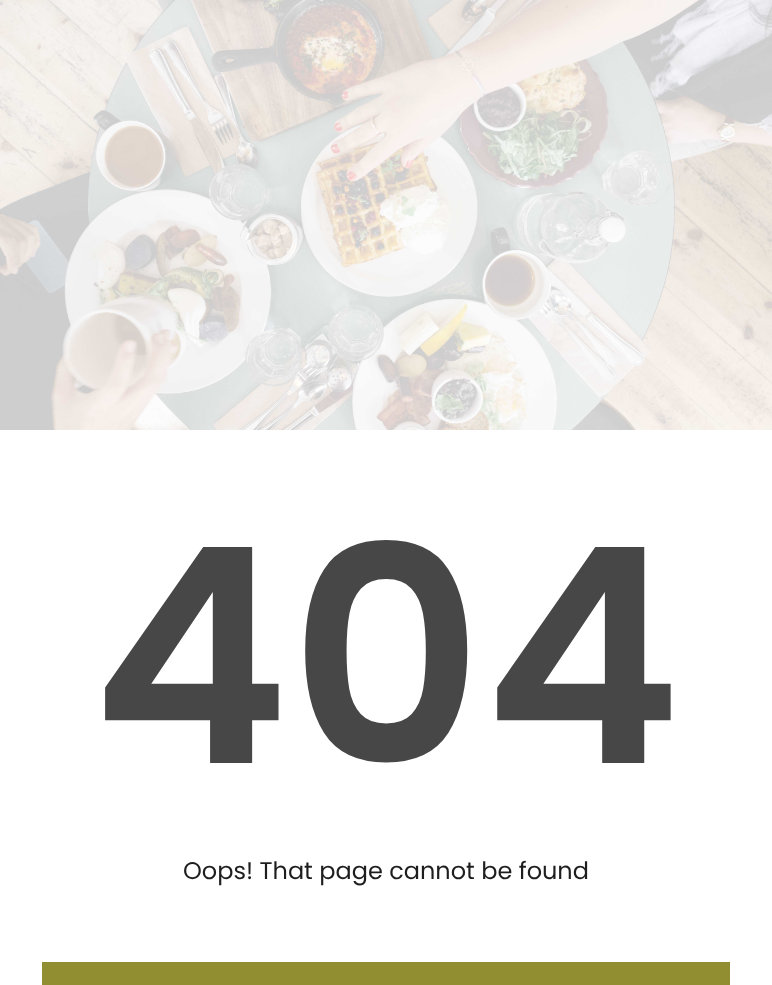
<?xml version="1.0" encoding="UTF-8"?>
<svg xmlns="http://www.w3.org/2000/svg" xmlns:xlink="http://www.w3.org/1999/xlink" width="772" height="985">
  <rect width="100%" height="100%" fill="#ffffff" />
  <image x="0" y="0" width="772" height="430" xlink:href="image1.png" />
  <rect x="42" y="962" width="688" height="23" fill="#918e31" />
  <text x="91" y="763" style="font-family: Poppins; font-size: 300px; font-weight: 600; fill: #474747">404</text>
  <text x="183" y="879" style="font-family: Poppins; font-size: 24px; fill: #1e1e1e">Oops! That page cannot be found</text>
</svg>
